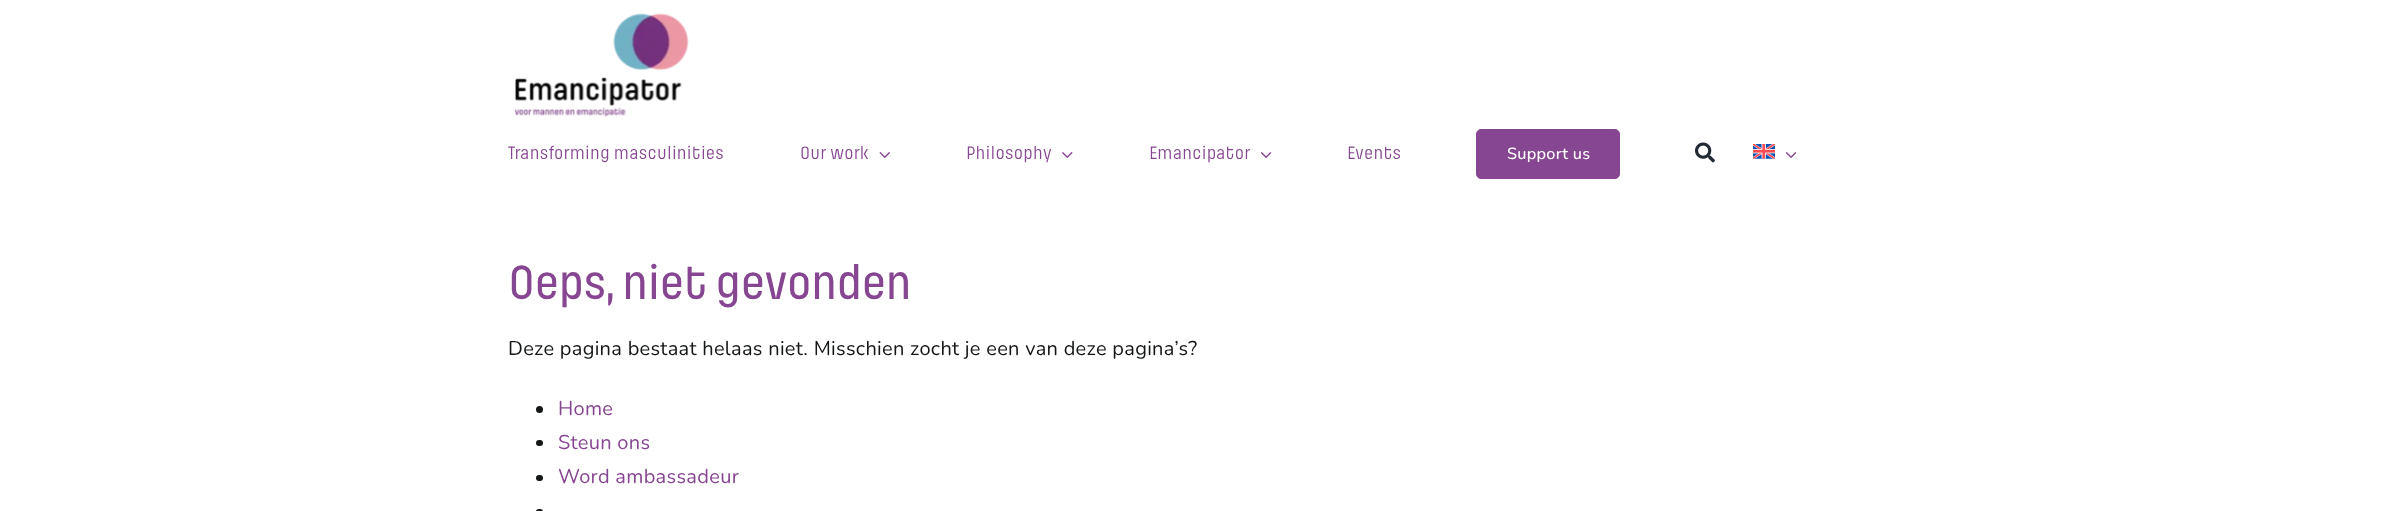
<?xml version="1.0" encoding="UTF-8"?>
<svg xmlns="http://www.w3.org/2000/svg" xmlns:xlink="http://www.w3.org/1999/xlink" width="2391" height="511">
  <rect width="100%" height="100%" fill="#ffffff" />
  <image x="514" y="13" width="175" height="104" xlink:href="image1.png" />
  <image x="879" y="152" width="11" height="6" xlink:href="image2.png" />
  <image x="1062" y="152" width="11" height="6" xlink:href="image3.png" />
  <image x="1260" y="152" width="12" height="6" xlink:href="image4.png" />
  <rect x="1476.5" y="129.5" width="143" height="49" rx="4.5" fill="#874691" stroke="#874691" />
  <image x="1695" y="142" width="20" height="21" xlink:href="image5.png" />
  <image x="1753" y="144" width="22" height="15" xlink:href="image6.png" />
  <image x="1785" y="152" width="12" height="6" xlink:href="image4.png" />
  <circle cx="539.5" cy="409.5" r="3.5" fill="#141617" />
  <rect x="536" y="440" width="7" height="6" rx="3" fill="#141617" />
  <rect x="536" y="475" width="7" height="6" rx="3" fill="#141617" />
  <rect x="536" y="509" width="7" height="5" rx="3" fill="#141617" />
  <text x="508" y="159" style="font-family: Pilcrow; font-size: 18.75px; letter-spacing: 0.25px; fill: #874691">Transforming masculinities</text>
  <text x="800" y="159" style="font-family: Pilcrow; font-size: 18.75px; letter-spacing: 0.25px; fill: #874691">Our work</text>
  <text x="966" y="159" style="font-family: Pilcrow; font-size: 18.75px; letter-spacing: 0.25px; fill: #874691">Philosophy</text>
  <text x="1149" y="159" style="font-family: Pilcrow; font-size: 18.75px; letter-spacing: 0.25px; fill: #874691">Emancipator</text>
  <text x="1347" y="159" style="font-family: Pilcrow; font-size: 18.75px; letter-spacing: 0.25px; fill: #874691">Events</text>
  <text x="1507" y="159" style="font-family: Nunito; font-size: 16.25px; font-weight: 500; letter-spacing: 0.25px; fill: #ffffff">Support us</text>
  <text x="508" y="299" style="font-family: Pilcrow; font-size: 50px; font-weight: 500; letter-spacing: -0.75px; fill: #874691">Oeps, niet gevonden</text>
  <text x="508" y="355" style="font-family: Nunito; font-size: 20px; letter-spacing: 0.3px; fill: #141617">Deze pagina bestaat helaas niet. Misschien zocht je een van deze pagina’s?</text>
  <text x="558" y="415" style="font-family: Nunito; font-size: 20px; letter-spacing: 0.3px; fill: #874691">Home</text>
  <text x="558" y="449" style="font-family: Nunito; font-size: 20px; letter-spacing: 0.3px; fill: #874691">Steun ons</text>
  <text x="558" y="483" style="font-family: Nunito; font-size: 20px; letter-spacing: 0.3px; fill: #874691">Word ambassadeur</text>
</svg>
